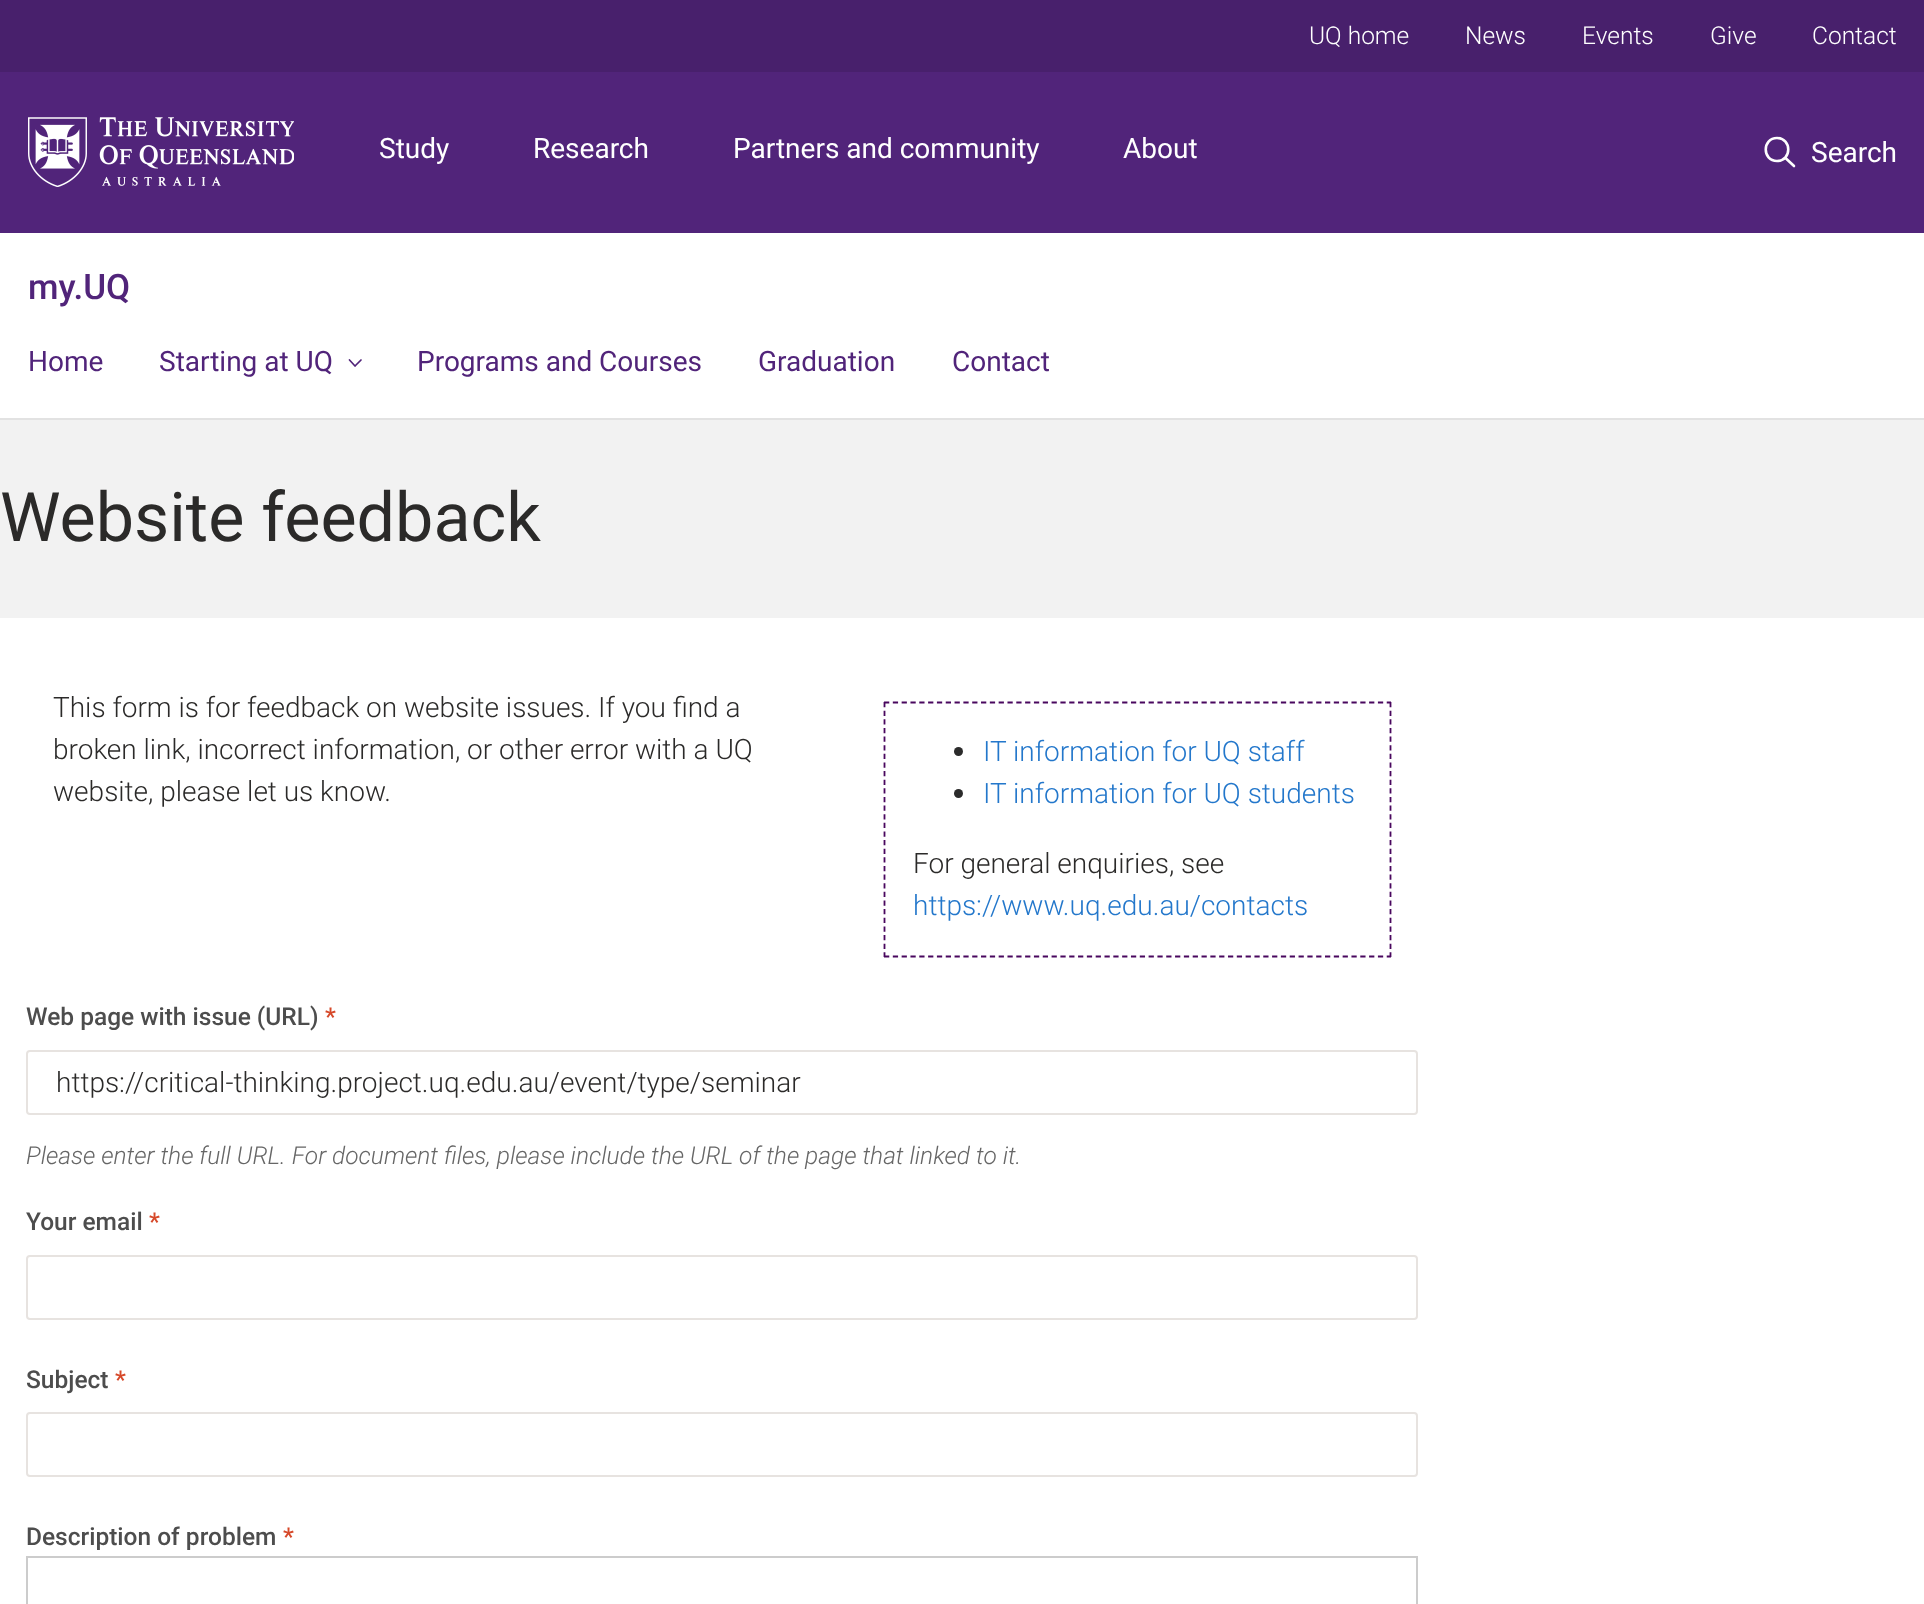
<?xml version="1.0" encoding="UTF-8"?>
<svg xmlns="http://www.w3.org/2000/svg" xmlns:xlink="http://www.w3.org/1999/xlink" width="1924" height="1604">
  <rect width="100%" height="100%" fill="#ffffff" />
  <rect y="72" width="1924" height="161" fill="#51247a" />
  <rect width="1924" height="72" fill="#48206c" />
  <image x="28" y="117" width="266" height="70" xlink:href="image1.png" />
  <path d="M 1777 161 c 15 0 15 -23 0 -23 c -15 0 -15 23 0 23 z" fill="none" stroke="#ffffff" stroke-width="2.6" />
  <path d="M 1786 158.5 l 8 7.5" fill="none" stroke="#ffffff" stroke-width="2.6" stroke-linecap="round" stroke-linejoin="round" />
  <rect y="418" width="1924" height="2" fill="#e2e2e2" />
  <path d="M 349.5 360 l 5.5 6 l 6 -6" fill="none" stroke="#51247a" stroke-width="1.7" stroke-linecap="round" stroke-linejoin="round" />
  <rect y="420" width="1924" height="198" fill="#f2f2f2" />
  <path d="M 884 702.5 h 507" fill="none" stroke="#49075e" stroke-width="1.8" stroke-dasharray="5.25 3.57" />
  <path d="M 1390.5 702 v 255" fill="none" stroke="#49075e" stroke-width="1.8" stroke-dasharray="5.25 3.38" />
  <path d="M 884 956.5 h 507" fill="none" stroke="#49075e" stroke-width="1.8" stroke-dasharray="5.25 3.57" />
  <path d="M 884.5 702 v 255" fill="none" stroke="#49075e" stroke-width="1.8" stroke-dasharray="5.25 3.38" />
  <circle cx="958.5" cy="751.5" r="4.5" fill="#2b2b2b" />
  <circle cx="958.5" cy="793.5" r="4.5" fill="#2b2b2b" />
  <rect x="27" y="1051" width="1390" height="63" rx="3" fill="none" stroke="#e7e3e0" stroke-width="2" />
  <rect x="27" y="1256" width="1390" height="63" rx="3" fill="none" stroke="#e7e3e0" stroke-width="2" />
  <rect x="27" y="1413" width="1390" height="63" rx="3" fill="none" stroke="#e7e3e0" stroke-width="2" />
  <rect x="27" y="1557" width="1390" height="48" fill="none" stroke="#cccccc" stroke-width="2" />
  <text x="1309" y="44" style="font-family: Roboto; font-size: 24.5px; font-weight: 300; fill: #ffffff">UQ home</text>
  <text x="1465" y="44" style="font-family: Roboto; font-size: 24.5px; font-weight: 300; fill: #ffffff">News</text>
  <text x="1582" y="44" style="font-family: Roboto; font-size: 24.5px; font-weight: 300; fill: #ffffff">Events</text>
  <text x="1710" y="44" style="font-family: Roboto; font-size: 24.5px; font-weight: 300; fill: #ffffff">Give</text>
  <text x="1812" y="44" style="font-family: Roboto; font-size: 24.5px; font-weight: 300; fill: #ffffff">Contact</text>
  <text x="379" y="158" style="font-family: Roboto; font-size: 28px; fill: #ffffff">Study</text>
  <text x="533" y="158" style="font-family: Roboto; font-size: 28px; fill: #ffffff">Research</text>
  <text x="733" y="158" style="font-family: Roboto; font-size: 28px; fill: #ffffff">Partners and community</text>
  <text x="1123" y="158" style="font-family: Roboto; font-size: 28px; fill: #ffffff">About</text>
  <text x="1811" y="162" style="font-family: Roboto; font-size: 28px; fill: #ffffff">Search</text>
  <text x="28" y="299" style="font-family: Roboto; font-size: 35px; font-weight: 500; fill: #51247a">my.UQ</text>
  <text x="28" y="371" style="font-family: Roboto; font-size: 28px; fill: #51247a">Home</text>
  <text x="159" y="371" style="font-family: Roboto; font-size: 28px; fill: #51247a">Starting at UQ</text>
  <text x="417" y="371" style="font-family: Roboto; font-size: 28px; fill: #51247a">Programs and Courses</text>
  <text x="758" y="371" style="font-family: Roboto; font-size: 28px; fill: #51247a">Graduation</text>
  <text x="952" y="371" style="font-family: Roboto; font-size: 28px; fill: #51247a">Contact</text>
  <text x="0" y="541" style="font-family: Roboto; font-size: 68.25px; fill: #2b2a29">Website feedback</text>
  <text x="53" y="717" style="font-family: Roboto; font-size: 28px; font-weight: 300; fill: #2b2a29">This form is for feedback on website issues. If you find a</text>
  <text x="53" y="759" style="font-family: Roboto; font-size: 28px; font-weight: 300; fill: #2b2a29">broken link, incorrect information, or other error with a UQ</text>
  <text x="53" y="801" style="font-family: Roboto; font-size: 28px; font-weight: 300; fill: #2b2a29">website, please let us know.</text>
  <text x="983" y="761" style="font-family: Roboto; font-size: 28px; font-weight: 300; fill: #2377cb">IT information for UQ staff</text>
  <text x="983" y="803" style="font-family: Roboto; font-size: 28px; font-weight: 300; fill: #2377cb">IT information for UQ students</text>
  <text x="913" y="873" style="font-family: Roboto; font-size: 28px; font-weight: 300; fill: #2b2a29">For general enquiries, see</text>
  <text x="913" y="915" style="font-family: Roboto; font-size: 28px; font-weight: 300; fill: #2377cb">https://www.uq.edu.au/contacts</text>
  <text x="26" y="1025" style="font-family: Roboto; font-size: 24.5px; font-weight: 500; fill: #4d4d4d">Web page with issue (URL)</text>
  <text x="325" y="1025" style="font-family: Roboto; font-size: 24.5px; font-weight: 500; fill: #d6492a">*</text>
  <text x="56" y="1092" style="font-family: Roboto; font-size: 28px; font-weight: 300; fill: #2b2a29">https://critical-thinking.project.uq.edu.au/event/type/seminar</text>
  <text x="26" y="1164" style="font-family: Roboto; font-size: 24.5px; font-weight: 300; font-style: italic; fill: #666666">Please enter the full URL. For document files, please include the URL of the page that linked to it.</text>
  <text x="26" y="1230" style="font-family: Roboto; font-size: 24.5px; font-weight: 500; fill: #4d4d4d">Your email</text>
  <text x="149" y="1230" style="font-family: Roboto; font-size: 24.5px; font-weight: 500; fill: #d6492a">*</text>
  <text x="26" y="1388" style="font-family: Roboto; font-size: 24.5px; font-weight: 500; fill: #4d4d4d">Subject</text>
  <text x="115" y="1388" style="font-family: Roboto; font-size: 24.5px; font-weight: 500; fill: #d6492a">*</text>
  <text x="26" y="1545" style="font-family: Roboto; font-size: 24.5px; font-weight: 500; fill: #4d4d4d">Description of problem</text>
  <text x="283" y="1545" style="font-family: Roboto; font-size: 24.5px; font-weight: 500; fill: #d6492a">*</text>
</svg>
